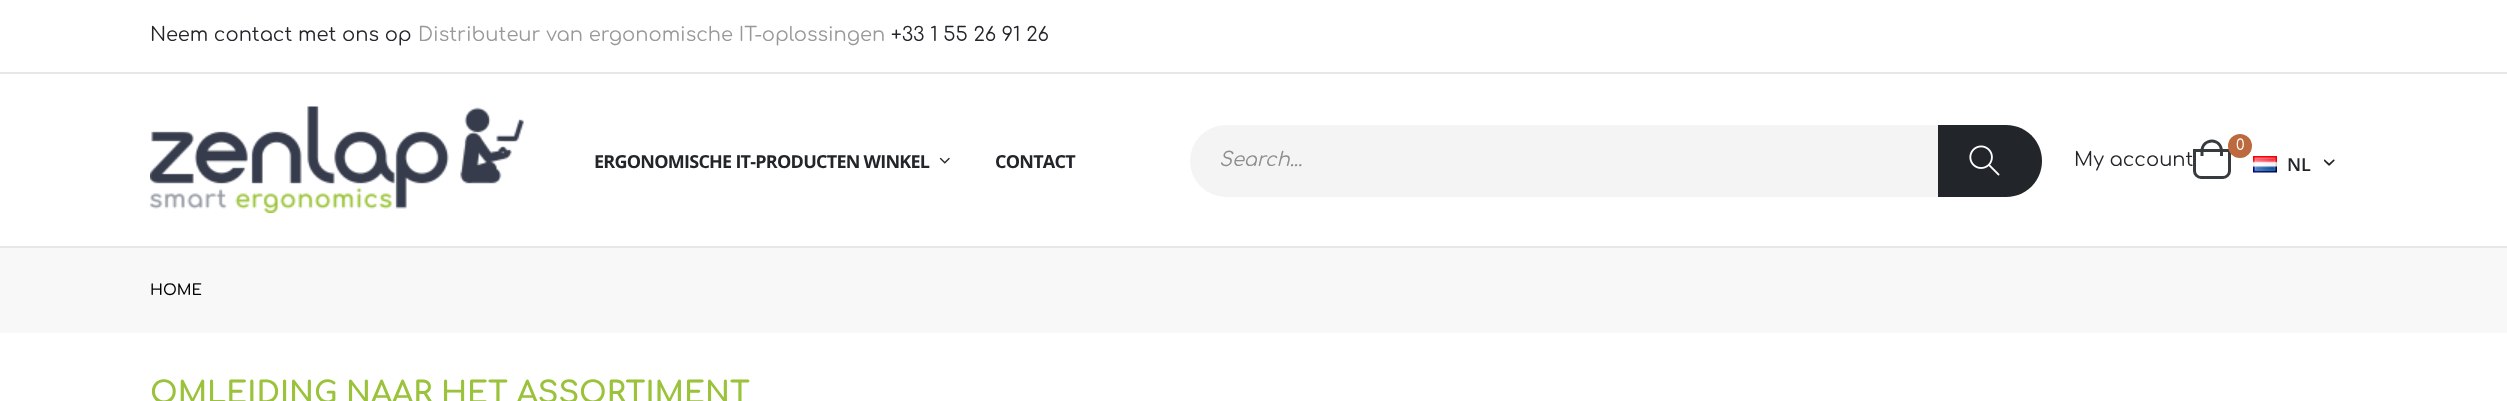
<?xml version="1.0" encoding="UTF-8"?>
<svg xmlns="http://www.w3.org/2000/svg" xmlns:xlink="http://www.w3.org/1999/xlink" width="2507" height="401">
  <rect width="100%" height="100%" fill="#ffffff" />
  <rect y="72" width="2507" height="2" fill="#e7e7e7" />
  <image x="150" y="106" width="374" height="107" xlink:href="image1.png" />
  <image x="939" y="157" width="11" height="7" xlink:href="image2.png" />
  <path d="M 2194.5 150.5 h 35 v 20.5 c 0 3.5 -3 6.5 -6.5 6.5 h -22 c -3.5 0 -6.5 -3 -6.5 -6.5 z" fill="none" stroke="#383b3e" stroke-width="3" />
  <path d="M 2212 139.5 c 6 0 11 5 11 11.5 v 5 h -22.5 v -5 c 0 -6.5 5 -11.5 11.5 -11.5 z m 0 3 c 4.5 0 8 3.5 8 8.5 v 5 h -16.5 v -5 c 0 -5 3.5 -8.5 8.5 -8.5 z" fill="#383b3e" fill-rule="evenodd" />
  <circle cx="2240" cy="146" r="12" fill="#bb693d" />
  <rect x="1190" y="125" width="852" height="72" rx="36" fill="#f4f4f4" />
  <path d="M 1938 125 h 68 c 20 0 36 16 36 36 c 0 20 -16 36 -36 36 h -68 z" fill="#222529" />
  <image x="1969" y="145" width="31" height="31" xlink:href="image3.png" />
  <image x="2253" y="156" width="24" height="17" xlink:href="image4.png" />
  <image x="2324" y="159" width="11" height="7" xlink:href="image5.png" />
  <rect y="248" width="2507" height="85" fill="#f8f8f8" />
  <rect y="246" width="2507" height="2" fill="#e7e7e7" />
  <text x="150" y="41" style="font-family: Comfortaa; font-size: 19.5px; fill: #222529">Neem contact met ons op</text>
  <text x="418" y="41" style="font-family: Comfortaa; font-size: 19.5px; fill: #999999">Distributeur van ergonomische IT-oplossingen</text>
  <text x="891" y="41" style="font-family: Comfortaa; font-size: 19.5px; fill: #222529">+33 1 55 26 91 26</text>
  <text x="594" y="168" style="font-family: Open Sans; font-size: 18px; font-weight: bold; letter-spacing: -0.75px; fill: #222529">ERGONOMISCHE IT-PRODUCTEN WINKEL</text>
  <text x="995" y="168" style="font-family: Open Sans; font-size: 18px; font-weight: bold; letter-spacing: -0.75px; fill: #222529">CONTACT</text>
  <text x="2236" y="150" style="font-family: Comfortaa; font-size: 15px; fill: #ffffff">0</text>
  <text x="1219" y="166" style="font-family: Comfortaa; font-size: 19.5px; font-style: italic; fill: #8d8d8d">Search...</text>
  <text x="2074" y="166" style="font-family: Comfortaa; font-size: 19.5px; fill: #222529">My account</text>
  <text x="2287" y="171" style="font-family: Open Sans; font-size: 18px; font-weight: 600; fill: #222529">NL</text>
  <text x="150" y="295" style="font-family: Comfortaa; font-size: 15px; font-weight: 600; fill: #000000">HOME</text>
  <text x="150" y="403" style="font-family: Comfortaa; font-size: 30px; font-weight: bold; fill: #9bc23b">OMLEIDING NAAR HET ASSORTIMENT</text>
</svg>
